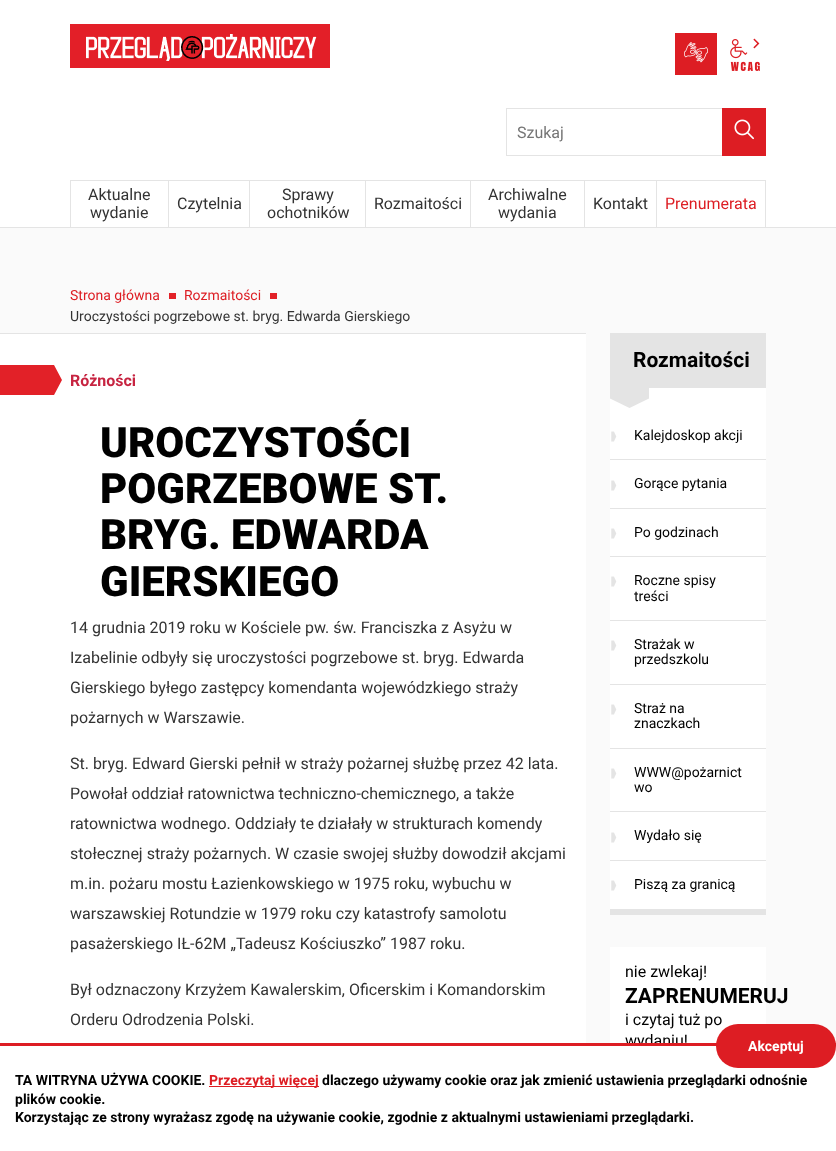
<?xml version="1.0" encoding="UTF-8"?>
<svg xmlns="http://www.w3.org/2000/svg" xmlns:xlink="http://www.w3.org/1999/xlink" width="836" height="1151">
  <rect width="100%" height="100%" fill="#fafafa" />
  <rect width="836" height="227" fill="#ffffff" />
  <rect y="227" width="836" height="1" fill="#e4e4e4" />
  <image x="70" y="24" width="260" height="44" xlink:href="image1.png" />
  <rect x="675" y="33" width="42" height="42" fill="#dd1d23" />
  <image x="684" y="42" width="24" height="21" xlink:href="image2.png" />
  <image x="730" y="39" width="30" height="32" xlink:href="image4.png" />
  <image x="753" y="38" width="7" height="11" xlink:href="image3.png" />
  <rect x="506.5" y="108.5" width="259" height="47" fill="none" stroke="#e4e4e4" />
  <rect x="722" y="108" width="44" height="48" fill="#dd1d23" />
  <image x="734" y="119" width="20" height="21" xlink:href="image5.png" />
  <rect x="70.5" y="180.5" width="98" height="47" fill="none" stroke="#e4e4e4" />
  <rect x="169" y="180" width="597" height="1" fill="#e4e4e4" />
  <rect x="249" y="180" width="1" height="48" fill="#e4e4e4" />
  <rect x="365" y="180" width="1" height="48" fill="#e4e4e4" />
  <rect x="470" y="180" width="1" height="48" fill="#e4e4e4" />
  <rect x="584" y="180" width="1" height="48" fill="#e4e4e4" />
  <rect x="656" y="180" width="1" height="48" fill="#e4e4e4" />
  <rect x="765" y="180" width="1" height="48" fill="#e4e4e4" />
  <rect x="169" y="293" width="7" height="6" fill="#e22128" />
  <rect x="270" y="293" width="7" height="6" fill="#e22128" />
  <rect y="334" width="586" height="709" fill="#ffffff" />
  <rect y="333" width="586" height="1" fill="#e4e4e4" />
  <path d="M 0 395 v -30 h 54 l 8 15 l -8 15 z" fill="#e22128" />
  <rect x="610" y="388" width="156" height="521" fill="#ffffff" />
  <rect x="610" y="909" width="156" height="6" fill="#e4e4e4" />
  <rect x="610" y="333" width="156" height="55" fill="#e4e4e4" />
  <path d="M 610 388 h 39 v 10.5 l -19.5 9.5 l -19.5 -9.5 z" fill="#e4e4e4" />
  <rect x="610" y="459" width="156" height="402" fill="#e4e4e4" />
  <image x="611" y="431" width="6" height="11" xlink:href="image6.png" />
  <rect x="610" y="460" width="156" height="48" fill="#ffffff" />
  <image x="611" y="480" width="6" height="11" xlink:href="image6.png" />
  <rect x="610" y="509" width="156" height="47" fill="#ffffff" />
  <image x="611" y="528" width="6" height="11" xlink:href="image6.png" />
  <rect x="610" y="557" width="156" height="63" fill="#ffffff" />
  <image x="611" y="576" width="6" height="11" xlink:href="image6.png" />
  <rect x="610" y="621" width="156" height="63" fill="#ffffff" />
  <image x="611" y="640" width="6" height="11" xlink:href="image6.png" />
  <rect x="610" y="685" width="156" height="63" fill="#ffffff" />
  <image x="611" y="704" width="6" height="11" xlink:href="image6.png" />
  <rect x="610" y="749" width="156" height="62" fill="#ffffff" />
  <image x="611" y="768" width="6" height="11" xlink:href="image6.png" />
  <rect x="610" y="812" width="156" height="48" fill="#ffffff" />
  <image x="611" y="832" width="6" height="11" xlink:href="image6.png" />
  <image x="611" y="880" width="6" height="11" xlink:href="image6.png" />
  <rect x="610" y="947" width="156" height="96" fill="#ffffff" />
  <text x="517" y="138" style="font-family: Roboto; font-size: 16px; fill: #757575">Szukaj</text>
  <text x="88" y="200" style="font-family: Roboto; font-size: 16px; fill: #333333">Aktualne</text>
  <text x="90" y="218" style="font-family: Roboto; font-size: 16px; fill: #333333">wydanie</text>
  <text x="177" y="209" style="font-family: Roboto; font-size: 16px; fill: #333333">Czytelnia</text>
  <text x="282" y="200" style="font-family: Roboto; font-size: 16px; fill: #333333">Sprawy</text>
  <text x="267" y="218" style="font-family: Roboto; font-size: 16px; fill: #333333">ochotników</text>
  <text x="374" y="209" style="font-family: Roboto; font-size: 16px; fill: #333333">Rozmaitości</text>
  <text x="488" y="200" style="font-family: Roboto; font-size: 16px; fill: #333333">Archiwalne</text>
  <text x="498" y="218" style="font-family: Roboto; font-size: 16px; fill: #333333">wydania</text>
  <text x="593" y="209" style="font-family: Roboto; font-size: 16px; fill: #333333">Kontakt</text>
  <text x="665" y="209" style="font-family: Roboto; font-size: 16px; fill: #dd1d23">Prenumerata</text>
  <text x="70" y="300" style="font-family: Roboto; font-size: 14px; fill: #dd1d23">Strona główna</text>
  <text x="184" y="300" style="font-family: Roboto; font-size: 14px; fill: #dd1d23">Rozmaitości</text>
  <text x="70" y="321" style="font-family: Roboto; font-size: 14px; fill: #333333">Uroczystości pogrzebowe st. bryg. Edwarda Gierskiego</text>
  <text x="70" y="386" style="font-family: Roboto; font-size: 16px; font-weight: bold; fill: #c72441">Różności</text>
  <text x="100" y="457" style="font-family: Roboto; font-size: 42px; font-weight: 900; fill: #000000">UROCZYSTOŚCI</text>
  <text x="100" y="503" style="font-family: Roboto; font-size: 42px; font-weight: 900; fill: #000000">POGRZEBOWE ST.</text>
  <text x="100" y="549" style="font-family: Roboto; font-size: 42px; font-weight: 900; fill: #000000">BRYG. EDWARDA</text>
  <text x="100" y="596" style="font-family: Roboto; font-size: 42px; font-weight: 900; fill: #000000">GIERSKIEGO</text>
  <text x="70" y="633" style="font-family: Roboto; font-size: 16px; fill: #333333">14 grudnia 2019 roku w Kościele pw. św. Franciszka z Asyżu w</text>
  <text x="70" y="663" style="font-family: Roboto; font-size: 16px; fill: #333333">Izabelinie odbyły się uroczystości pogrzebowe st. bryg. Edwarda</text>
  <text x="70" y="693" style="font-family: Roboto; font-size: 16px; fill: #333333">Gierskiego byłego zastępcy komendanta wojewódzkiego straży</text>
  <text x="70" y="723" style="font-family: Roboto; font-size: 16px; fill: #333333">pożarnych w Warszawie.</text>
  <text x="70" y="769" style="font-family: Roboto; font-size: 16px; fill: #333333">St. bryg. Edward Gierski pełnił w straży pożarnej służbę przez 42 lata.</text>
  <text x="70" y="799" style="font-family: Roboto; font-size: 16px; fill: #333333">Powołał oddział ratownictwa techniczno-chemicznego, a także</text>
  <text x="70" y="829" style="font-family: Roboto; font-size: 16px; fill: #333333">ratownictwa wodnego. Oddziały te działały w strukturach komendy</text>
  <text x="70" y="859" style="font-family: Roboto; font-size: 16px; fill: #333333">stołecznej straży pożarnych. W czasie swojej służby dowodził akcjami</text>
  <text x="70" y="889" style="font-family: Roboto; font-size: 16px; fill: #333333">m.in. pożaru mostu Łazienkowskiego w 1975 roku, wybuchu w</text>
  <text x="70" y="919" style="font-family: Roboto; font-size: 16px; fill: #333333">warszawskiej Rotundzie w 1979 roku czy katastrofy samolotu</text>
  <text x="70" y="949" style="font-family: Roboto; font-size: 16px; fill: #333333">pasażerskiego IŁ-62M „Tadeusz Kościuszko” 1987 roku.</text>
  <text x="70" y="995" style="font-family: Roboto; font-size: 16px; fill: #333333">Był odznaczony Krzyżem Kawalerskim, Oficerskim i Komandorskim</text>
  <text x="70" y="1025" style="font-family: Roboto; font-size: 16px; fill: #333333">Orderu Odrodzenia Polski.</text>
  <text x="633" y="367" style="font-family: Roboto; font-size: 21px; font-weight: bold; fill: #000000">Rozmaitości</text>
  <text x="634" y="440" style="font-family: Roboto; font-size: 14px; fill: #000000">Kalejdoskop akcji</text>
  <text x="634" y="488" style="font-family: Roboto; font-size: 14px; fill: #000000">Gorące pytania</text>
  <text x="634" y="537" style="font-family: Roboto; font-size: 14px; fill: #000000">Po godzinach</text>
  <text x="634" y="585" style="font-family: Roboto; font-size: 14px; fill: #000000">Roczne spisy</text>
  <text x="634" y="601" style="font-family: Roboto; font-size: 14px; fill: #000000">treści</text>
  <text x="634" y="649" style="font-family: Roboto; font-size: 14px; fill: #000000">Strażak w</text>
  <text x="634" y="664" style="font-family: Roboto; font-size: 14px; fill: #000000">przedszkolu</text>
  <text x="634" y="713" style="font-family: Roboto; font-size: 14px; fill: #000000">Straż na</text>
  <text x="634" y="728" style="font-family: Roboto; font-size: 14px; fill: #000000">znaczkach</text>
  <text x="634" y="777" style="font-family: Roboto; font-size: 14px; fill: #000000">WWW@pożarnict</text>
  <text x="634" y="792" style="font-family: Roboto; font-size: 14px; fill: #000000">wo</text>
  <text x="634" y="840" style="font-family: Roboto; font-size: 14px; fill: #000000">Wydało się</text>
  <text x="634" y="889" style="font-family: Roboto; font-size: 14px; fill: #000000">Piszą za granicą</text>
  <text x="625" y="977" style="font-family: Roboto; font-size: 16px; fill: #000000">nie zwlekaj!</text>
  <text x="625" y="1003" style="font-family: Roboto; font-size: 21px; font-weight: bold; fill: #000000">ZAPRENUMERUJ</text>
  <text x="625" y="1025" style="font-family: Roboto; font-size: 16px; fill: #000000">i czytaj tuż po</text>
  <text x="625" y="1046" style="font-family: Roboto; font-size: 16px; fill: #000000">wydaniu!</text>
  <rect y="1046" width="836" height="105" fill="#ffffff" />
  <rect y="1043" width="836" height="3" fill="#dd1d23" />
  <rect x="716" y="1024" width="120" height="44" rx="22" fill="#dd1d23" />
  <text x="748" y="1051" style="font-family: Roboto; font-size: 14px; font-weight: bold; fill: #ffffff">Akceptuj</text>
  <text x="15" y="1085" style="font-family: Roboto; font-size: 14px; font-weight: bold; fill: #000000">TA WITRYNA UŻYWA COOKIE.</text>
  <rect x="209" y="1086" width="110" height="1" fill="#dd1d23" />
  <text x="209" y="1085" style="font-family: Roboto; font-size: 14px; font-weight: bold; fill: #dd1d23">Przeczytaj więcej</text>
  <text x="322" y="1085" style="font-family: Roboto; font-size: 14px; font-weight: bold; fill: #000000">dlaczego używamy cookie oraz jak zmienić ustawienia przeglądarki odnośnie</text>
  <text x="15" y="1104" style="font-family: Roboto; font-size: 14px; font-weight: bold; fill: #000000">plików cookie.</text>
  <text x="15" y="1122" style="font-family: Roboto; font-size: 14px; font-weight: bold; fill: #000000">Korzystając ze strony wyrażasz zgodę na używanie cookie, zgodnie z aktualnymi ustawieniami przeglądarki.</text>
</svg>
